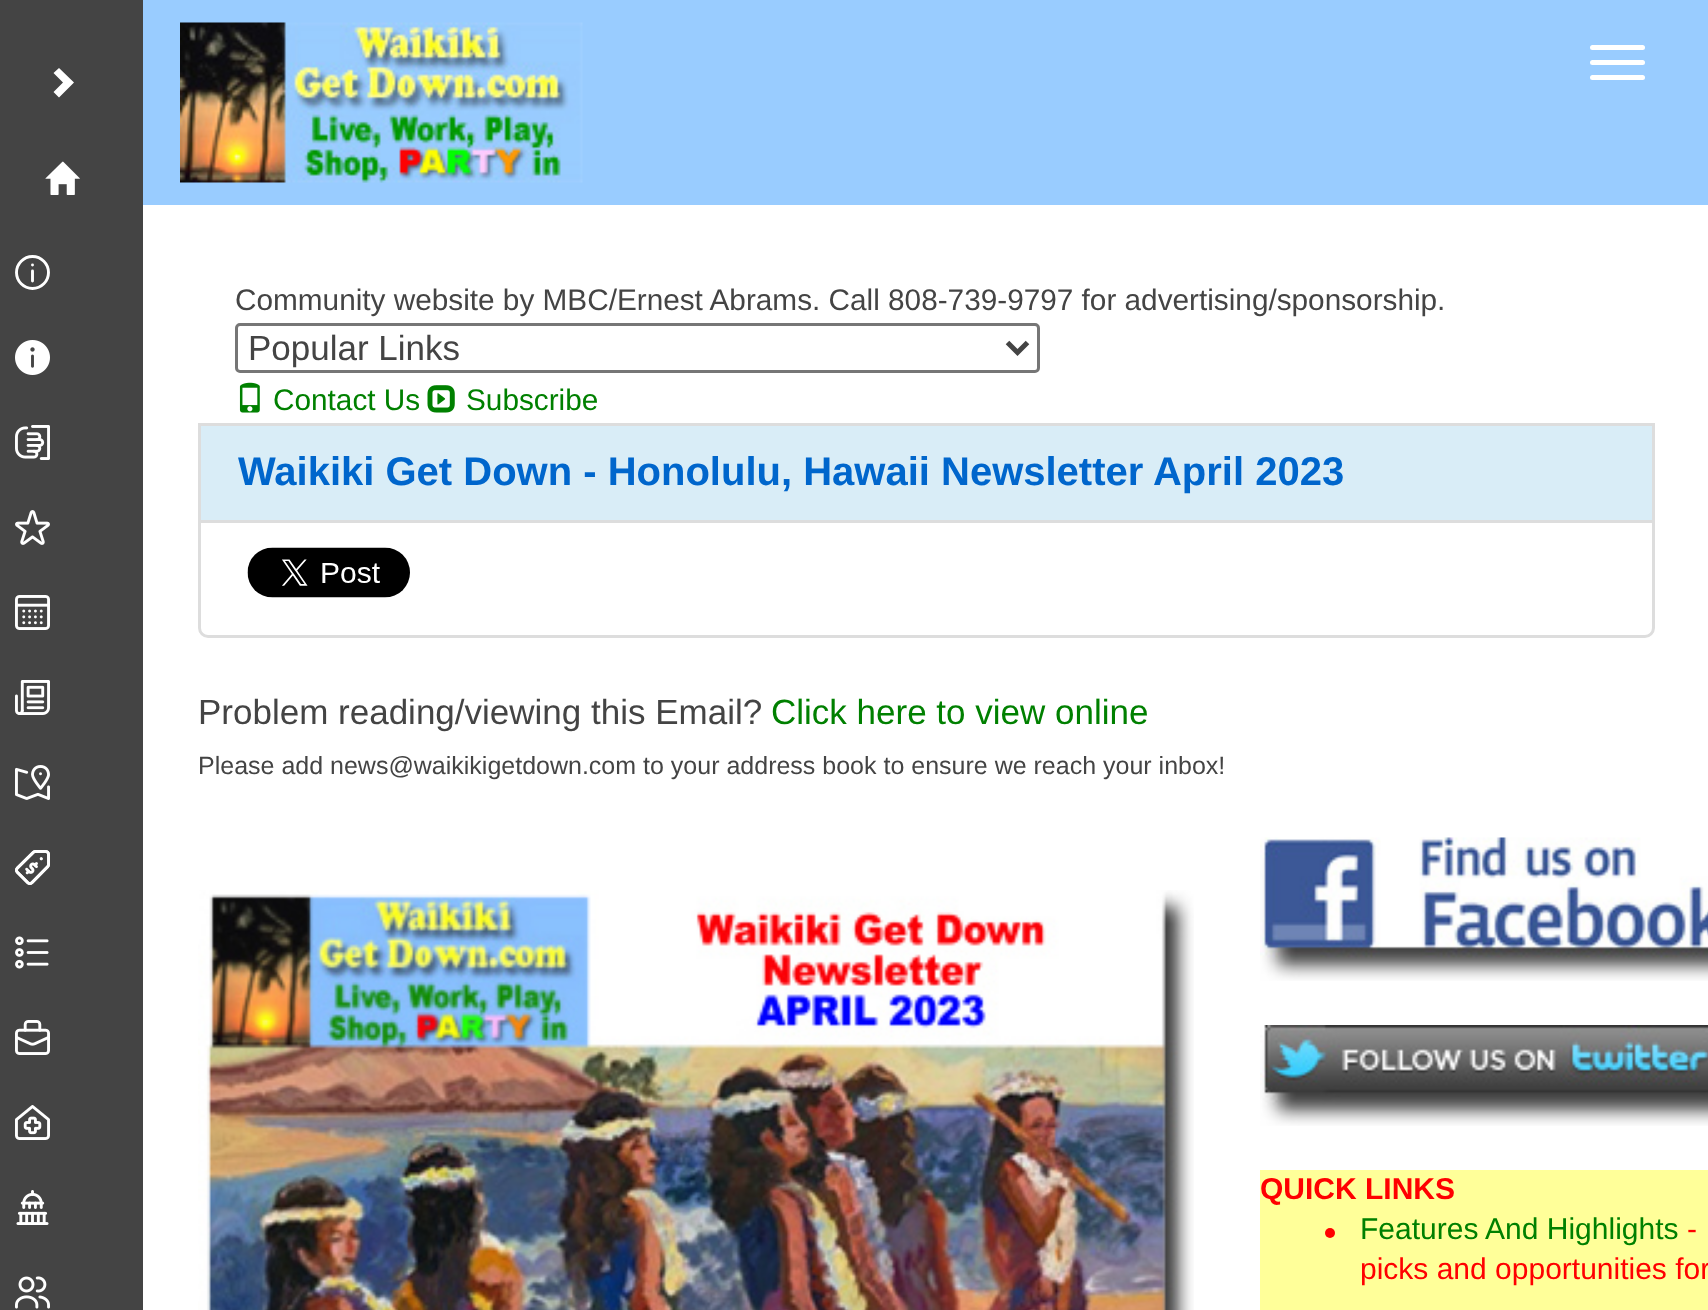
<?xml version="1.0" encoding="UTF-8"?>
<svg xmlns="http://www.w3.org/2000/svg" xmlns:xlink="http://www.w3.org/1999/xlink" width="1708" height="1310">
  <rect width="100%" height="100%" fill="#444444" />
  <path d="M 74 82.5 l -15 15 l -5.5 -5.5 l 9.5 -9.5 l -9.5 -9.5 l 5.5 -5 z" fill="#ffffff" />
  <image x="45" y="161" width="35" height="34" xlink:href="image1.png" />
  <circle cx="32.5" cy="272.5" r="16" fill="none" stroke="#ffffff" stroke-width="2.9" />
  <path d="M 32.5 271 v 10 m 0 -16 h 0" fill="none" stroke="#ffffff" stroke-width="2.9" stroke-linecap="round" stroke-linejoin="round" />
  <image x="15" y="340" width="35" height="35" xlink:href="image2.png" />
  <image x="15" y="425" width="35" height="35" xlink:href="image3.png" />
  <image x="15" y="510" width="35" height="35" xlink:href="image4.png" />
  <image x="15" y="595" width="35" height="35" xlink:href="image5.png" />
  <image x="15" y="680" width="35" height="35" xlink:href="image6.png" />
  <image x="15" y="765" width="35" height="35" xlink:href="image7.png" />
  <image x="15" y="850" width="35" height="35" xlink:href="image8.png" />
  <image x="15" y="936" width="34" height="33" xlink:href="image9.png" />
  <image x="15" y="1020" width="35" height="35" xlink:href="image10.png" />
  <image x="15" y="1105" width="35" height="35" xlink:href="image11.png" />
  <image x="16" y="1190" width="33" height="35" xlink:href="image12.png" />
  <image x="15" y="1276" width="35" height="33" xlink:href="image13.png" />
  <rect x="143" y="205" width="1565" height="1105" fill="#ffffff" />
  <rect x="143" width="1565" height="205" fill="#99ccff" />
  <image x="180" y="22" width="403" height="161" xlink:href="image14.png" />
  <rect x="1590" y="45" width="55" height="5" rx="2.5" fill="#ffffff" />
  <rect x="1590" y="60" width="55" height="5" rx="2.5" fill="#ffffff" />
  <rect x="1590" y="75" width="55" height="5" rx="2.5" fill="#ffffff" />
  <rect x="236.5" y="324.5" width="802" height="47" rx="3.5" fill="none" stroke="#767676" stroke-width="3" />
  <path d="M 1007.5 342.5 l 10 10 l 10 -10" fill="none" stroke="#444444" stroke-width="5" />
  <image x="239" y="382" width="21" height="31" xlink:href="image15.png" />
  <image x="427" y="385" width="28" height="28" xlink:href="image16.png" />
  <rect x="199.5" y="424.5" width="1454" height="97" fill="#d9edf7" stroke="#dddddd" stroke-width="3" />
  <path d="M 199.5 521.5 h 1454 v 106.5 c 0 4.5 -4 8.5 -8.5 8.5 h -1437 c -4.5 0 -8.5 -4 -8.5 -8.5 z" fill="#ffffff" stroke="#dddddd" stroke-width="3" />
  <image x="247" y="547" width="163" height="51" xlink:href="image17.png" />
  <image x="198" y="890" width="996" height="420" xlink:href="image18.png" />
  <image x="1260" y="837" width="448" height="144" xlink:href="image19.png" />
  <image x="1260" y="1025" width="448" height="101" xlink:href="image20.png" />
  <rect x="1260" y="1170" width="448" height="140" fill="#ffff99" />
  <circle cx="1330" cy="1233" r="5" fill="#ff0000" />
  <text x="235" y="310" style="font-family: Liberation Sans; font-size: 29.75px; fill: #444444">Community website by MBC/Ernest Abrams. Call 808-739-9797 for advertising/sponsorship.</text>
  <text x="248" y="360" style="font-family: Liberation Sans; font-size: 35px; fill: #444444">Popular Links</text>
  <text x="273" y="410" style="font-family: Liberation Sans; font-size: 29.75px; fill: #008000">Contact Us</text>
  <text x="466" y="410" style="font-family: Liberation Sans; font-size: 29.75px; fill: #008000">Subscribe</text>
  <text x="238" y="485" style="font-family: Liberation Sans; font-size: 40px; font-weight: bold; fill: #0066cc">Waikiki Get Down - Honolulu, Hawaii Newsletter April 2023</text>
  <text x="198" y="724" style="font-family: Liberation Sans; font-size: 35px; fill: #444444">Problem reading/viewing this Email?</text>
  <text x="771" y="724" style="font-family: Liberation Sans; font-size: 35px; fill: #008000">Click here to view online</text>
  <text x="198" y="774" style="font-family: Liberation Sans; font-size: 25px; fill: #444444">Please add news@waikikigetdown.com to your address book to ensure we reach your inbox!</text>
  <text x="1260" y="1199" style="font-family: Liberation Sans; font-size: 30px; font-weight: bold; fill: #ff0000">QUICK LINKS</text>
  <text x="1360" y="1239" style="font-family: Liberation Sans; font-size: 30px; fill: #008000">Features And Highlights</text>
  <text x="1687" y="1239" style="font-family: Liberation Sans; font-size: 30px; fill: #ff0000">-</text>
  <text x="1360" y="1279" style="font-family: Liberation Sans; font-size: 30px; fill: #ff0000">picks and opportunities for</text>
</svg>
